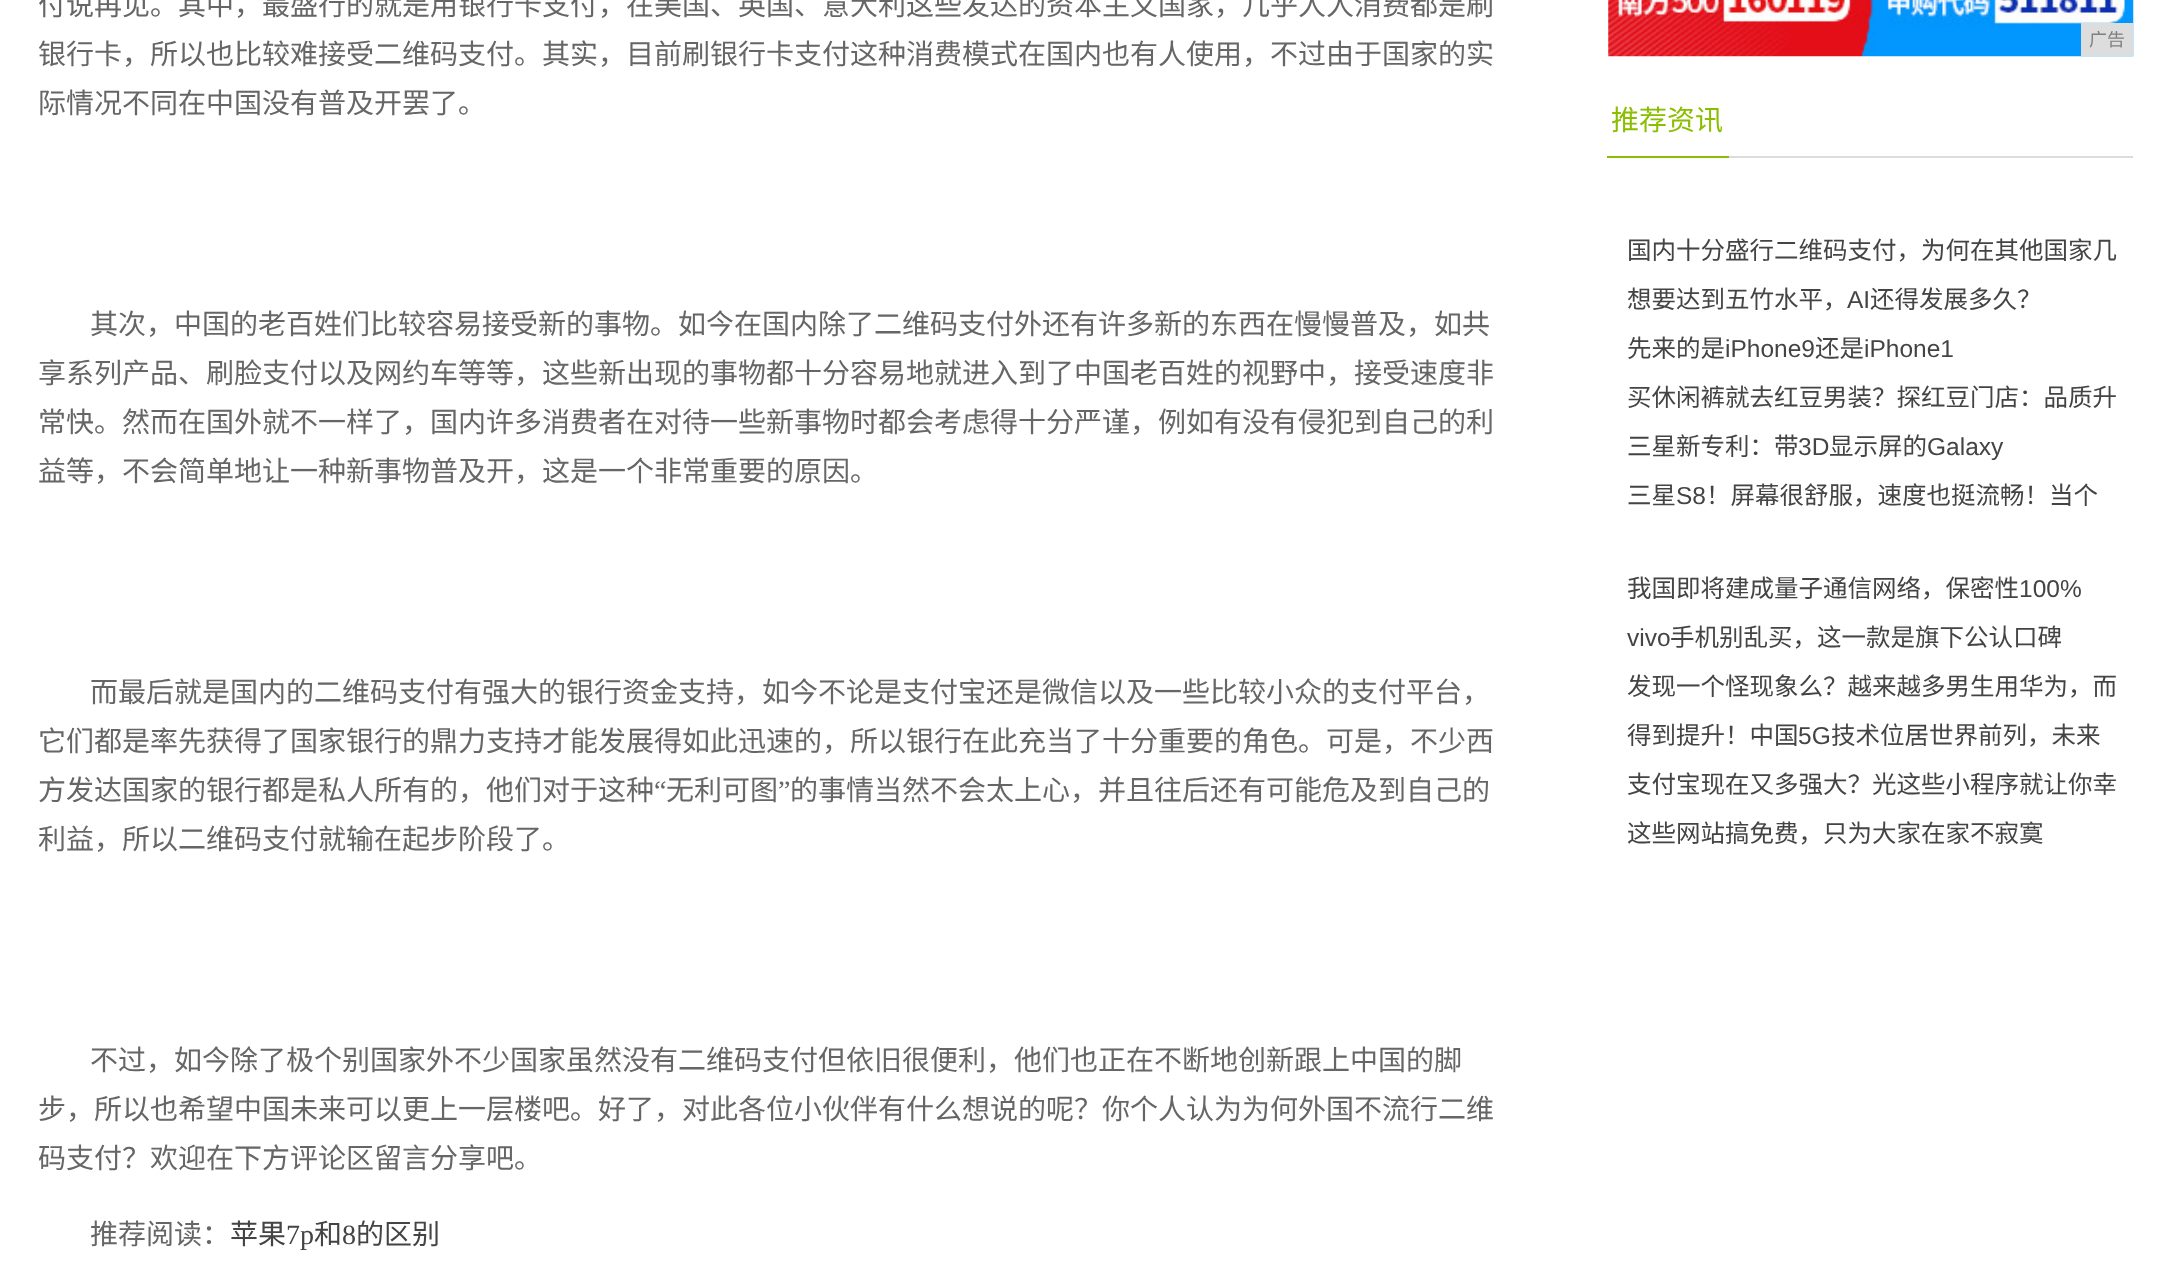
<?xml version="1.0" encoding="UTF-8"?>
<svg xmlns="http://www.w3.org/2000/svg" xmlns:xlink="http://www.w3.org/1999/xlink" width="2164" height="1265">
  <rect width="100%" height="100%" fill="#ffffff" />
  <image x="1608" y="0" width="526" height="57" xlink:href="image1.png" />
  <rect x="2081" y="23" width="52" height="33" fill="#dddddd" />
  <rect x="1729" y="156" width="404" height="2" fill="#dcdcdc" />
  <rect x="1607" y="156" width="122" height="2" fill="#8bbd00" />
  <text x="38" y="15" style="font-family: Noto Sans CJK SC; font-size: 28px; fill: #666666">付说再见。其中，最盛行的就是用银行卡支付，在美国、英国、意大利这些发达的资本主义国家，几乎人人消费都是刷</text>
  <text x="38" y="64" style="font-family: Noto Sans CJK SC; font-size: 28px; fill: #666666">银行卡，所以也比较难接受二维码支付。其实，目前刷银行卡支付这种消费模式在国内也有人使用，不过由于国家的实</text>
  <text x="38" y="113" style="font-family: Noto Sans CJK SC; font-size: 28px; fill: #666666">际情况不同在中国没有普及开罢了。</text>
  <text x="90" y="334" style="font-family: Noto Sans CJK SC; font-size: 28px; fill: #666666">其次，中国的老百姓们比较容易接受新的事物。如今在国内除了二维码支付外还有许多新的东西在慢慢普及，如共</text>
  <text x="38" y="383" style="font-family: Noto Sans CJK SC; font-size: 28px; fill: #666666">享系列产品、刷脸支付以及网约车等等，这些新出现的事物都十分容易地就进入到了中国老百姓的视野中，接受速度非</text>
  <text x="38" y="432" style="font-family: Noto Sans CJK SC; font-size: 28px; fill: #666666">常快。然而在国外就不一样了，国内许多消费者在对待一些新事物时都会考虑得十分严谨，例如有没有侵犯到自己的利</text>
  <text x="38" y="481" style="font-family: Noto Sans CJK SC; font-size: 28px; fill: #666666">益等，不会简单地让一种新事物普及开，这是一个非常重要的原因。</text>
  <text x="90" y="702" style="font-family: Noto Sans CJK SC; font-size: 28px; fill: #666666">而最后就是国内的二维码支付有强大的银行资金支持，如今不论是支付宝还是微信以及一些比较小众的支付平台，</text>
  <text x="38" y="751" style="font-family: Noto Sans CJK SC; font-size: 28px; fill: #666666">它们都是率先获得了国家银行的鼎力支持才能发展得如此迅速的，所以银行在此充当了十分重要的角色。可是，不少西</text>
  <text x="38" y="800" style="font-family: Noto Sans CJK SC; font-size: 28px; fill: #666666">方发达国家的银行都是私人所有的，他们对于这种</text>
  <text x="654" y="800" style="font-family: Liberation Serif; font-size: 28px; fill: #666666">“</text>
  <text x="666" y="800" style="font-family: Noto Sans CJK SC; font-size: 28px; fill: #666666">无利可图</text>
  <text x="778" y="800" style="font-family: Liberation Serif; font-size: 28px; fill: #666666">”</text>
  <text x="790" y="800" style="font-family: Noto Sans CJK SC; font-size: 28px; fill: #666666">的事情当然不会太上心，并且往后还有可能危及到自己的</text>
  <text x="38" y="849" style="font-family: Noto Sans CJK SC; font-size: 28px; fill: #666666">利益，所以二维码支付就输在起步阶段了。</text>
  <text x="90" y="1070" style="font-family: Noto Sans CJK SC; font-size: 28px; fill: #666666">不过，如今除了极个别国家外不少国家虽然没有二维码支付但依旧很便利，他们也正在不断地创新跟上中国的脚</text>
  <text x="38" y="1119" style="font-family: Noto Sans CJK SC; font-size: 28px; fill: #666666">步，所以也希望中国未来可以更上一层楼吧。好了，对此各位小伙伴有什么想说的呢？你个人认为为何外国不流行二维</text>
  <text x="38" y="1168" style="font-family: Noto Sans CJK SC; font-size: 28px; fill: #666666">码支付？欢迎在下方评论区留言分享吧。</text>
  <text x="90" y="1244" style="font-family: Noto Sans CJK SC; font-size: 28px; fill: #666666">推荐阅读：</text>
  <text x="230" y="1244" style="font-family: Noto Sans CJK SC; font-size: 28px; fill: #444444">苹果</text>
  <text x="286" y="1244" style="font-family: Liberation Serif; font-size: 28px; fill: #444444">7p</text>
  <text x="314" y="1244" style="font-family: Noto Sans CJK SC; font-size: 28px; fill: #444444">和</text>
  <text x="342" y="1244" style="font-family: Liberation Serif; font-size: 28px; fill: #444444">8</text>
  <text x="356" y="1244" style="font-family: Noto Sans CJK SC; font-size: 28px; fill: #444444">的区别</text>
  <text x="2089" y="46" style="font-family: Noto Sans CJK SC; font-size: 18px; fill: #808080">广告</text>
  <text x="1611" y="130" style="font-family: Noto Sans CJK SC; font-size: 28px; fill: #8bbd00">推荐资讯</text>
  <text x="1627" y="259" style="font-family: Noto Sans CJK SC; font-size: 24.5px; fill: #444444">国内十分盛行二维码支付，为何在其他国家几</text>
  <text x="1627" y="308" style="font-family: Noto Sans CJK SC; font-size: 24.5px; fill: #444444">想要达到五竹水平，</text>
  <text x="1847" y="308" style="font-family: Liberation Sans; font-size: 24.5px; fill: #444444">AI</text>
  <text x="1870" y="308" style="font-family: Noto Sans CJK SC; font-size: 24.5px; fill: #444444">还得发展多久？</text>
  <text x="1627" y="357" style="font-family: Noto Sans CJK SC; font-size: 24.5px; fill: #444444">先来的是</text>
  <text x="1725" y="357" style="font-family: Liberation Sans; font-size: 24.5px; fill: #444444">iPhone9</text>
  <text x="1815" y="357" style="font-family: Noto Sans CJK SC; font-size: 24.5px; fill: #444444">还是</text>
  <text x="1864" y="357" style="font-family: Liberation Sans; font-size: 24.5px; fill: #444444">iPhone1</text>
  <text x="1627" y="406" style="font-family: Noto Sans CJK SC; font-size: 24.5px; fill: #444444">买休闲裤就去红豆男装？探红豆门店：品质升</text>
  <text x="1627" y="455" style="font-family: Noto Sans CJK SC; font-size: 24.5px; fill: #444444">三星新专利：带</text>
  <text x="1798" y="455" style="font-family: Liberation Sans; font-size: 24.5px; fill: #444444">3D</text>
  <text x="1829" y="455" style="font-family: Noto Sans CJK SC; font-size: 24.5px; fill: #444444">显示屏的</text>
  <text x="1927" y="455" style="font-family: Liberation Sans; font-size: 24.5px; fill: #444444">Galaxy</text>
  <text x="1627" y="504" style="font-family: Noto Sans CJK SC; font-size: 24.5px; fill: #444444">三星</text>
  <text x="1676" y="504" style="font-family: Liberation Sans; font-size: 24.5px; fill: #444444">S8</text>
  <text x="1706" y="504" style="font-family: Noto Sans CJK SC; font-size: 24.5px; fill: #444444">！屏幕很舒服，速度也挺流畅！当个</text>
  <text x="1627" y="597" style="font-family: Noto Sans CJK SC; font-size: 24.5px; fill: #444444">我国即将建成量子通信网络，保密性</text>
  <text x="2019" y="597" style="font-family: Liberation Sans; font-size: 24.5px; fill: #444444">100%</text>
  <text x="1627" y="646" style="font-family: Liberation Sans; font-size: 24.5px; fill: #444444">vivo</text>
  <text x="1670" y="646" style="font-family: Noto Sans CJK SC; font-size: 24.5px; fill: #444444">手机别乱买，这一款是旗下公认口碑</text>
  <text x="1627" y="695" style="font-family: Noto Sans CJK SC; font-size: 24.5px; fill: #444444">发现一个怪现象么？越来越多男生用华为，而</text>
  <text x="1627" y="744" style="font-family: Noto Sans CJK SC; font-size: 24.5px; fill: #444444">得到提升！中国</text>
  <text x="1798" y="744" style="font-family: Liberation Sans; font-size: 24.5px; fill: #444444">5G</text>
  <text x="1831" y="744" style="font-family: Noto Sans CJK SC; font-size: 24.5px; fill: #444444">技术位居世界前列，未来</text>
  <text x="1627" y="793" style="font-family: Noto Sans CJK SC; font-size: 24.5px; fill: #444444">支付宝现在又多强大？光这些小程序就让你幸</text>
  <text x="1627" y="842" style="font-family: Noto Sans CJK SC; font-size: 24.5px; fill: #444444">这些网站搞免费，只为大家在家不寂寞</text>
</svg>
